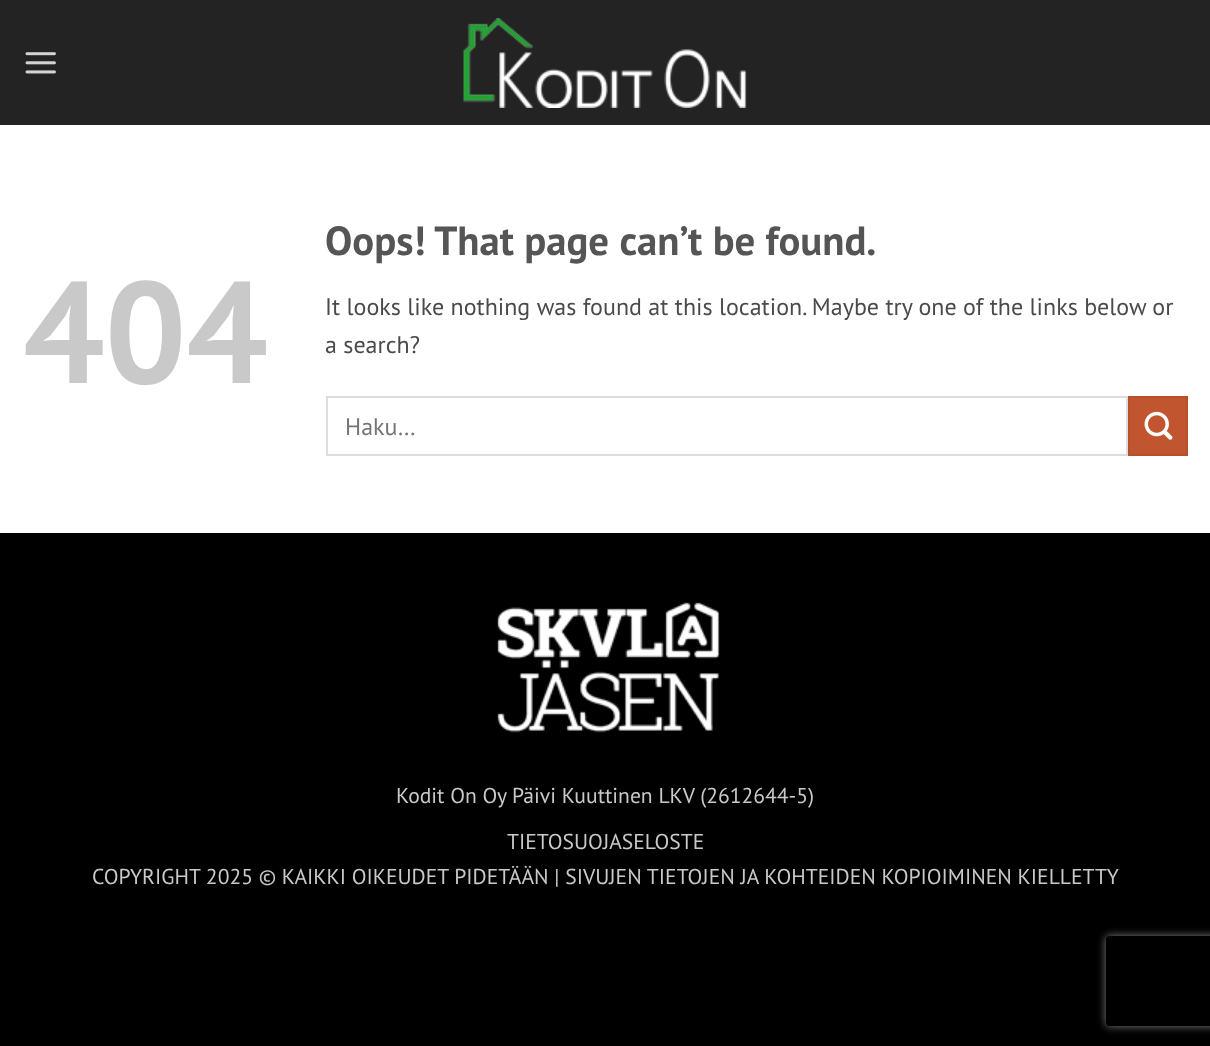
<?xml version="1.0" encoding="UTF-8"?>
<svg xmlns="http://www.w3.org/2000/svg" xmlns:xlink="http://www.w3.org/1999/xlink" width="1210" height="1046">
  <defs>
    <clipPath id="clip1"><path d="M 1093 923 h 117 v 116 h -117 z m 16 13 h 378 c 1.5 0 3 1.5 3 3 v 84 c 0 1.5 -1.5 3 -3 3 h -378 c -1.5 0 -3 -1.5 -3 -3 v -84 c 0 -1.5 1.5 -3 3 -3 z" clip-rule="evenodd" /></clipPath>
  </defs>
  <rect width="100%" height="100%" fill="#000000" />
  <rect y="125" width="1210" height="408" fill="#ffffff" />
  <rect width="1210" height="125" fill="#232323" />
  <image x="25" y="52" width="31" height="22" xlink:href="image1.png" />
  <image x="463" y="18" width="284" height="90" xlink:href="image2.png" />
  <rect x="327" y="397" width="800" height="58" fill="none" stroke="#dddddd" stroke-width="2" />
  <rect x="1129" y="397" width="58" height="58" fill="#c05530" stroke="#b6512e" stroke-width="2" />
  <image x="1144" y="411" width="29" height="29" xlink:href="image3.png" />
  <image x="497" y="602" width="223" height="131" xlink:href="image4.png" />
  <g clip-path="url(#clip1)">
    <rect x="1106" y="936" width="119" height="90" rx="3" fill="#808080" filter="blur(4px)" />
  </g>
  <text x="23" y="383" style="font-family: PT Sans; font-size: 144px; font-weight: bold; fill: #c9c9c9">404</text>
  <text x="325" y="255" style="font-family: PT Sans; font-size: 40.75px; font-weight: bold; fill: #555555">Oops! That page can’t be found.</text>
  <text x="325" y="315" style="font-family: PT Sans; font-size: 24px; fill: #4a4a4a">It looks like nothing was found at this location. Maybe try one of the links below or</text>
  <text x="325" y="353" style="font-family: PT Sans; font-size: 24px; fill: #4a4a4a">a search?</text>
  <text x="345" y="435" style="font-family: PT Sans; font-size: 24px; fill: #757575">Haku…</text>
  <text x="396" y="803" style="font-family: PT Sans; font-size: 21.6px; fill: #c9c9c9">Kodit On Oy Päivi Kuuttinen LKV (2612644-5)</text>
  <text x="507" y="849" style="font-family: PT Sans; font-size: 21.6px; fill: #c9c9c9">TIETOSUOJASELOSTE</text>
  <text x="92" y="884" style="font-family: PT Sans; font-size: 21.6px; fill: #c9c9c9">COPYRIGHT 2025 © KAIKKI OIKEUDET PIDETÄÄN | SIVUJEN TIETOJEN JA KOHTEIDEN KOPIOIMINEN KIELLETTY</text>
</svg>
